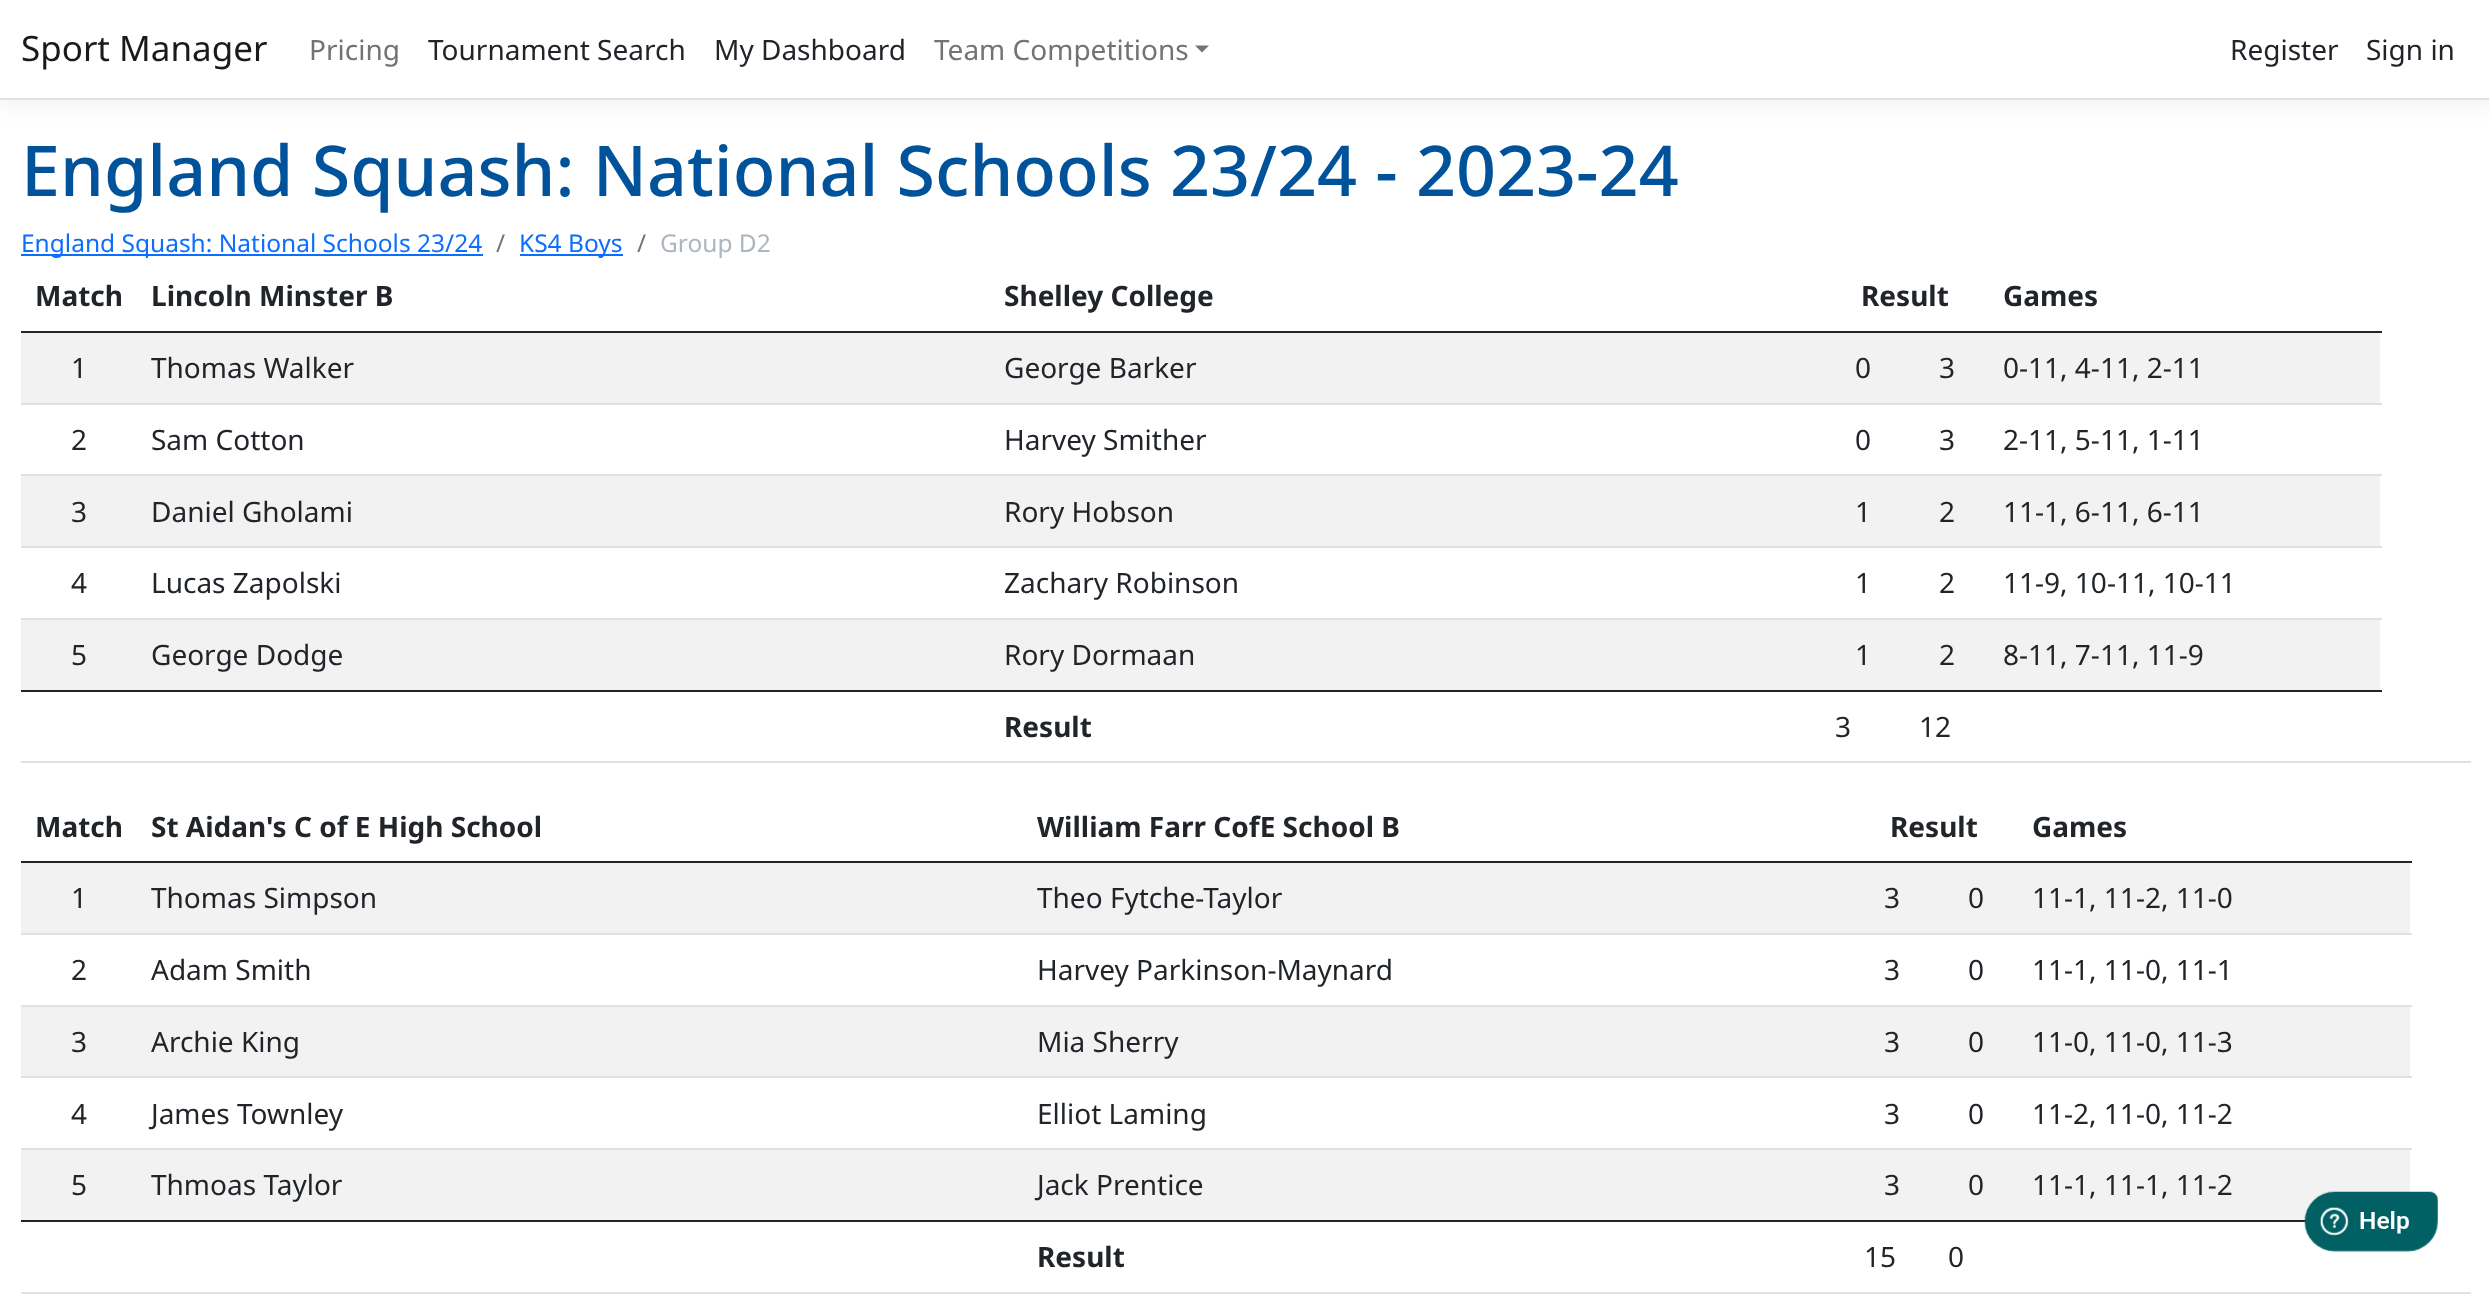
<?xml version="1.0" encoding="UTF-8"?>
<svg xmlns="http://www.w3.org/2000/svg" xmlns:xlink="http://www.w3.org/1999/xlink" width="2489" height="1314">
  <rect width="100%" height="100%" fill="#ffffff" />
  <rect y="7" width="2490" height="100" fill="#000000" fill-opacity="0.05" filter="blur(10.5px)" />
  <rect width="2489" height="98" fill="#ffffff" />
  <rect y="98" width="2489" height="2" fill="#dee2e6" />
  <path d="M 1195 45.5 h 14 l -7 7 z" fill="#737373" />
  <rect x="21" y="254" width="462" height="2" fill="#0d6efd" />
  <rect x="520" y="254" width="103" height="2" fill="#0d6efd" />
  <rect x="21" y="331" width="2361" height="2" fill="#212529" />
  <rect x="21" y="333" width="2359" height="70" fill="#f2f2f2" />
  <rect x="21" y="403" width="2361" height="2" fill="#dee2e6" />
  <rect x="21" y="474" width="2361" height="2" fill="#dee2e6" />
  <rect x="21" y="476" width="2359" height="70" fill="#f2f2f2" />
  <rect x="21" y="546" width="2361" height="2" fill="#dee2e6" />
  <rect x="21" y="618" width="2361" height="2" fill="#dee2e6" />
  <rect x="21" y="620" width="2359" height="70" fill="#f2f2f2" />
  <rect x="21" y="690" width="2361" height="2" fill="#212529" />
  <rect x="21" y="761" width="2450" height="2" fill="#dee2e6" />
  <rect x="21" y="861" width="2391" height="2" fill="#212529" />
  <rect x="21" y="863" width="2389" height="70" fill="#f2f2f2" />
  <rect x="21" y="933" width="2391" height="2" fill="#dee2e6" />
  <rect x="21" y="1005" width="2391" height="2" fill="#dee2e6" />
  <rect x="21" y="1007" width="2389" height="69" fill="#f2f2f2" />
  <rect x="21" y="1076" width="2391" height="2" fill="#dee2e6" />
  <rect x="21" y="1148" width="2391" height="2" fill="#dee2e6" />
  <rect x="21" y="1150" width="2389" height="70" fill="#f2f2f2" />
  <rect x="21" y="1220" width="2285" height="2" fill="#212529" />
  <rect x="21" y="1292" width="2450" height="2" fill="#dee2e6" />
  <image x="2304" y="1191" width="134" height="61" xlink:href="image1.png" />
  <text x="21" y="61" style="font-family: Noto Sans; font-size: 35px; fill: #1a1a1a">Sport Manager</text>
  <text x="309" y="60" style="font-family: Noto Sans; font-size: 28px; fill: #737373">Pricing</text>
  <text x="428" y="60" style="font-family: Noto Sans; font-size: 28px; fill: #212529">Tournament Search</text>
  <text x="714" y="60" style="font-family: Noto Sans; font-size: 28px; fill: #212529">My Dashboard</text>
  <text x="934" y="60" style="font-family: Noto Sans; font-size: 28px; fill: #737373">Team Competitions</text>
  <text x="2230" y="60" style="font-family: Noto Sans; font-size: 28px; fill: #212529">Register</text>
  <text x="2366" y="60" style="font-family: Noto Sans; font-size: 28px; fill: #212529">Sign in</text>
  <text x="21" y="196" style="font-family: Noto Sans; font-size: 70px; font-weight: 500; fill: #00539b">England Squash: National Schools 23/24 - 2023-24</text>
  <text x="21" y="252" style="font-family: Noto Sans; font-size: 24.5px; fill: #0d6efd">England Squash: National Schools 23/24</text>
  <text x="496" y="252" style="font-family: Noto Sans; font-size: 24.5px; fill: #6c757d">/</text>
  <text x="519" y="252" style="font-family: Noto Sans; font-size: 24.5px; fill: #0d6efd">KS4 Boys</text>
  <text x="637" y="252" style="font-family: Noto Sans; font-size: 24.5px; fill: #6c757d">/</text>
  <text x="660" y="252" style="font-family: Noto Sans; font-size: 24.5px; fill: #adb5bd">Group D2</text>
  <text x="35" y="306" style="font-family: Noto Sans; font-size: 28px; font-weight: bold; fill: #212529">Match</text>
  <text x="151" y="306" style="font-family: Noto Sans; font-size: 28px; font-weight: bold; fill: #212529">Lincoln Minster B</text>
  <text x="1004" y="306" style="font-family: Noto Sans; font-size: 28px; font-weight: bold; fill: #212529">Shelley College</text>
  <text x="1861" y="306" style="font-family: Noto Sans; font-size: 28px; font-weight: bold; fill: #212529">Result</text>
  <text x="2003" y="306" style="font-family: Noto Sans; font-size: 28px; font-weight: bold; fill: #212529">Games</text>
  <text x="71" y="378" style="font-family: Noto Sans; font-size: 28px; fill: #212529">1</text>
  <text x="151" y="378" style="font-family: Noto Sans; font-size: 28px; fill: #212529">Thomas Walker</text>
  <text x="1004" y="378" style="font-family: Noto Sans; font-size: 28px; fill: #212529">George Barker</text>
  <text x="1855" y="378" style="font-family: Noto Sans; font-size: 28px; fill: #212529">0</text>
  <text x="1939" y="378" style="font-family: Noto Sans; font-size: 28px; fill: #212529">3</text>
  <text x="2003" y="378" style="font-family: Noto Sans; font-size: 28px; fill: #212529">0-11, 4-11, 2-11</text>
  <text x="71" y="450" style="font-family: Noto Sans; font-size: 28px; fill: #212529">2</text>
  <text x="151" y="450" style="font-family: Noto Sans; font-size: 28px; fill: #212529">Sam Cotton</text>
  <text x="1004" y="450" style="font-family: Noto Sans; font-size: 28px; fill: #212529">Harvey Smither</text>
  <text x="1855" y="450" style="font-family: Noto Sans; font-size: 28px; fill: #212529">0</text>
  <text x="1939" y="450" style="font-family: Noto Sans; font-size: 28px; fill: #212529">3</text>
  <text x="2003" y="450" style="font-family: Noto Sans; font-size: 28px; fill: #212529">2-11, 5-11, 1-11</text>
  <text x="71" y="522" style="font-family: Noto Sans; font-size: 28px; fill: #212529">3</text>
  <text x="151" y="522" style="font-family: Noto Sans; font-size: 28px; fill: #212529">Daniel Gholami</text>
  <text x="1004" y="522" style="font-family: Noto Sans; font-size: 28px; fill: #212529">Rory Hobson</text>
  <text x="1855" y="522" style="font-family: Noto Sans; font-size: 28px; fill: #212529">1</text>
  <text x="1939" y="522" style="font-family: Noto Sans; font-size: 28px; fill: #212529">2</text>
  <text x="2003" y="522" style="font-family: Noto Sans; font-size: 28px; fill: #212529">11-1, 6-11, 6-11</text>
  <text x="71" y="593" style="font-family: Noto Sans; font-size: 28px; fill: #212529">4</text>
  <text x="151" y="593" style="font-family: Noto Sans; font-size: 28px; fill: #212529">Lucas Zapolski</text>
  <text x="1004" y="593" style="font-family: Noto Sans; font-size: 28px; fill: #212529">Zachary Robinson</text>
  <text x="1855" y="593" style="font-family: Noto Sans; font-size: 28px; fill: #212529">1</text>
  <text x="1939" y="593" style="font-family: Noto Sans; font-size: 28px; fill: #212529">2</text>
  <text x="2003" y="593" style="font-family: Noto Sans; font-size: 28px; fill: #212529">11-9, 10-11, 10-11</text>
  <text x="71" y="665" style="font-family: Noto Sans; font-size: 28px; fill: #212529">5</text>
  <text x="151" y="665" style="font-family: Noto Sans; font-size: 28px; fill: #212529">George Dodge</text>
  <text x="1004" y="665" style="font-family: Noto Sans; font-size: 28px; fill: #212529">Rory Dormaan</text>
  <text x="1855" y="665" style="font-family: Noto Sans; font-size: 28px; fill: #212529">1</text>
  <text x="1939" y="665" style="font-family: Noto Sans; font-size: 28px; fill: #212529">2</text>
  <text x="2003" y="665" style="font-family: Noto Sans; font-size: 28px; fill: #212529">8-11, 7-11, 11-9</text>
  <text x="1004" y="737" style="font-family: Noto Sans; font-size: 28px; font-weight: bold; fill: #212529">Result</text>
  <text x="1835" y="737" style="font-family: Noto Sans; font-size: 28px; fill: #212529">3</text>
  <text x="1919" y="737" style="font-family: Noto Sans; font-size: 28px; fill: #212529">12</text>
  <text x="35" y="837" style="font-family: Noto Sans; font-size: 28px; font-weight: bold; fill: #212529">Match</text>
  <text x="151" y="837" style="font-family: Noto Sans; font-size: 28px; font-weight: bold; fill: #212529">St Aidan's C of E High School</text>
  <text x="1037" y="837" style="font-family: Noto Sans; font-size: 28px; font-weight: bold; fill: #212529">William Farr CofE School B</text>
  <text x="1890" y="837" style="font-family: Noto Sans; font-size: 28px; font-weight: bold; fill: #212529">Result</text>
  <text x="2032" y="837" style="font-family: Noto Sans; font-size: 28px; font-weight: bold; fill: #212529">Games</text>
  <text x="71" y="908" style="font-family: Noto Sans; font-size: 28px; fill: #212529">1</text>
  <text x="151" y="908" style="font-family: Noto Sans; font-size: 28px; fill: #212529">Thomas Simpson</text>
  <text x="1037" y="908" style="font-family: Noto Sans; font-size: 28px; fill: #212529">Theo Fytche-Taylor</text>
  <text x="1884" y="908" style="font-family: Noto Sans; font-size: 28px; fill: #212529">3</text>
  <text x="1968" y="908" style="font-family: Noto Sans; font-size: 28px; fill: #212529">0</text>
  <text x="2032" y="908" style="font-family: Noto Sans; font-size: 28px; fill: #212529">11-1, 11-2, 11-0</text>
  <text x="71" y="980" style="font-family: Noto Sans; font-size: 28px; fill: #212529">2</text>
  <text x="151" y="980" style="font-family: Noto Sans; font-size: 28px; fill: #212529">Adam Smith</text>
  <text x="1037" y="980" style="font-family: Noto Sans; font-size: 28px; fill: #212529">Harvey Parkinson-Maynard</text>
  <text x="1884" y="980" style="font-family: Noto Sans; font-size: 28px; fill: #212529">3</text>
  <text x="1968" y="980" style="font-family: Noto Sans; font-size: 28px; fill: #212529">0</text>
  <text x="2032" y="980" style="font-family: Noto Sans; font-size: 28px; fill: #212529">11-1, 11-0, 11-1</text>
  <text x="71" y="1052" style="font-family: Noto Sans; font-size: 28px; fill: #212529">3</text>
  <text x="151" y="1052" style="font-family: Noto Sans; font-size: 28px; fill: #212529">Archie King</text>
  <text x="1037" y="1052" style="font-family: Noto Sans; font-size: 28px; fill: #212529">Mia Sherry</text>
  <text x="1884" y="1052" style="font-family: Noto Sans; font-size: 28px; fill: #212529">3</text>
  <text x="1968" y="1052" style="font-family: Noto Sans; font-size: 28px; fill: #212529">0</text>
  <text x="2032" y="1052" style="font-family: Noto Sans; font-size: 28px; fill: #212529">11-0, 11-0, 11-3</text>
  <text x="71" y="1124" style="font-family: Noto Sans; font-size: 28px; fill: #212529">4</text>
  <text x="151" y="1124" style="font-family: Noto Sans; font-size: 28px; fill: #212529">James Townley</text>
  <text x="1037" y="1124" style="font-family: Noto Sans; font-size: 28px; fill: #212529">Elliot Laming</text>
  <text x="1884" y="1124" style="font-family: Noto Sans; font-size: 28px; fill: #212529">3</text>
  <text x="1968" y="1124" style="font-family: Noto Sans; font-size: 28px; fill: #212529">0</text>
  <text x="2032" y="1124" style="font-family: Noto Sans; font-size: 28px; fill: #212529">11-2, 11-0, 11-2</text>
  <text x="71" y="1195" style="font-family: Noto Sans; font-size: 28px; fill: #212529">5</text>
  <text x="151" y="1195" style="font-family: Noto Sans; font-size: 28px; fill: #212529">Thmoas Taylor</text>
  <text x="1037" y="1195" style="font-family: Noto Sans; font-size: 28px; fill: #212529">Jack Prentice</text>
  <text x="1884" y="1195" style="font-family: Noto Sans; font-size: 28px; fill: #212529">3</text>
  <text x="1968" y="1195" style="font-family: Noto Sans; font-size: 28px; fill: #212529">0</text>
  <text x="2032" y="1195" style="font-family: Noto Sans; font-size: 28px; fill: #212529">11-1, 11-1, 11-2</text>
  <text x="1037" y="1267" style="font-family: Noto Sans; font-size: 28px; font-weight: bold; fill: #212529">Result</text>
  <text x="1864" y="1267" style="font-family: Noto Sans; font-size: 28px; fill: #212529">15</text>
  <text x="1948" y="1267" style="font-family: Noto Sans; font-size: 28px; fill: #212529">0</text>
</svg>
